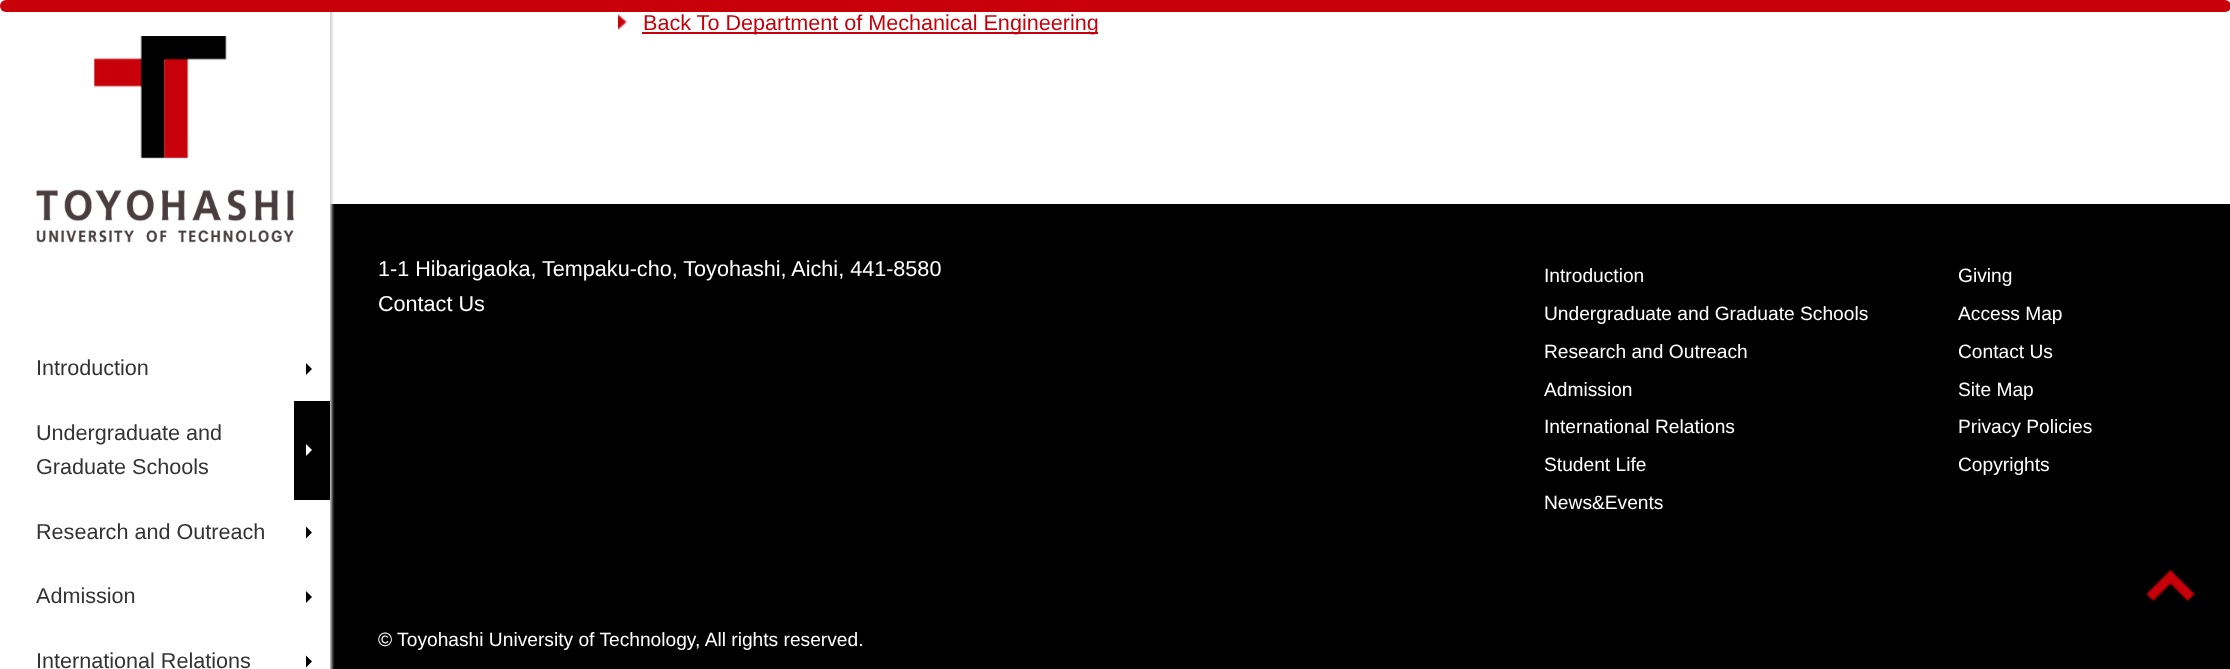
<?xml version="1.0" encoding="UTF-8"?>
<svg xmlns="http://www.w3.org/2000/svg" xmlns:xlink="http://www.w3.org/1999/xlink" width="2230" height="669">
  <defs>
    <clipPath id="clip1"><rect x="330" y="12" width="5" height="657" /></clipPath>
  </defs>
  <rect width="100%" height="100%" fill="#ffffff" />
  <rect x="330" y="204" width="1900" height="465" fill="#000000" />
  <g clip-path="url(#clip1)">
    <rect x="2" y="2" width="330" height="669" fill="#cccccc" filter="blur(1.5px)" />
  </g>
  <rect width="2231" height="12" rx="6" fill="#c7000a" />
  <image x="618" y="14" width="9" height="16" xlink:href="image1.png" />
  <rect x="642" y="32" width="456" height="2" fill="#c7000a" />
  <image x="36" y="36" width="258" height="207" xlink:href="image2.png" />
  <path d="M 306 375 v -12 l 6 6 z" fill="#000000" />
  <rect x="294" y="401" width="36" height="99" fill="#000000" />
  <path d="M 306 456 v -12 l 6 6 z" fill="#ffffff" />
  <path d="M 306 538.5 v -12 l 6 6 z" fill="#000000" />
  <path d="M 306 603 v -12 l 6 6 z" fill="#000000" />
  <path d="M 306 667.5 v -12 l 6 6 z" fill="#000000" />
  <image x="2146" y="570" width="49" height="32" xlink:href="image3.png" />
  <text x="643" y="30" style="font-family: Liberation Sans; font-size: 21.6px; fill: #c7000a">Back To Department of Mechanical Engineering</text>
  <text x="36" y="375" style="font-family: Liberation Sans; font-size: 21.6px; fill: #333333">Introduction</text>
  <text x="36" y="440" style="font-family: Liberation Sans; font-size: 21.6px; fill: #333333">Undergraduate and</text>
  <text x="36" y="474" style="font-family: Liberation Sans; font-size: 21.6px; fill: #333333">Graduate Schools</text>
  <text x="36" y="539" style="font-family: Liberation Sans; font-size: 21.6px; fill: #333333">Research and Outreach</text>
  <text x="36" y="603" style="font-family: Liberation Sans; font-size: 21.6px; fill: #333333">Admission</text>
  <text x="36" y="668" style="font-family: Liberation Sans; font-size: 21.6px; fill: #333333">International Relations</text>
  <text x="378" y="276" style="font-family: Liberation Sans; font-size: 21.6px; fill: #ffffff">1-1 Hibarigaoka, Tempaku-cho, Toyohashi, Aichi, 441-8580</text>
  <text x="378" y="311" style="font-family: Liberation Sans; font-size: 21.6px; fill: #ffffff">Contact Us</text>
  <text x="1544" y="282" style="font-family: Liberation Sans; font-size: 19.2px; fill: #ffffff">Introduction</text>
  <text x="1544" y="320" style="font-family: Liberation Sans; font-size: 19.2px; fill: #ffffff">Undergraduate and Graduate Schools</text>
  <text x="1544" y="358" style="font-family: Liberation Sans; font-size: 19.2px; fill: #ffffff">Research and Outreach</text>
  <text x="1544" y="396" style="font-family: Liberation Sans; font-size: 19.2px; fill: #ffffff">Admission</text>
  <text x="1544" y="433" style="font-family: Liberation Sans; font-size: 19.2px; fill: #ffffff">International Relations</text>
  <text x="1544" y="471" style="font-family: Liberation Sans; font-size: 19.2px; fill: #ffffff">Student Life</text>
  <text x="1544" y="509" style="font-family: Liberation Sans; font-size: 19.2px; fill: #ffffff">News&amp;Events</text>
  <text x="1958" y="282" style="font-family: Liberation Sans; font-size: 19.2px; fill: #ffffff">Giving</text>
  <text x="1958" y="320" style="font-family: Liberation Sans; font-size: 19.2px; fill: #ffffff">Access Map</text>
  <text x="1958" y="358" style="font-family: Liberation Sans; font-size: 19.2px; fill: #ffffff">Contact Us</text>
  <text x="1958" y="396" style="font-family: Liberation Sans; font-size: 19.2px; fill: #ffffff">Site Map</text>
  <text x="1958" y="433" style="font-family: Liberation Sans; font-size: 19.2px; fill: #ffffff">Privacy Policies</text>
  <text x="1958" y="471" style="font-family: Liberation Sans; font-size: 19.2px; fill: #ffffff">Copyrights</text>
  <text x="378" y="646" style="font-family: Liberation Sans; font-size: 19.2px; fill: #ffffff">© Toyohashi University of Technology, All rights reserved.</text>
</svg>
